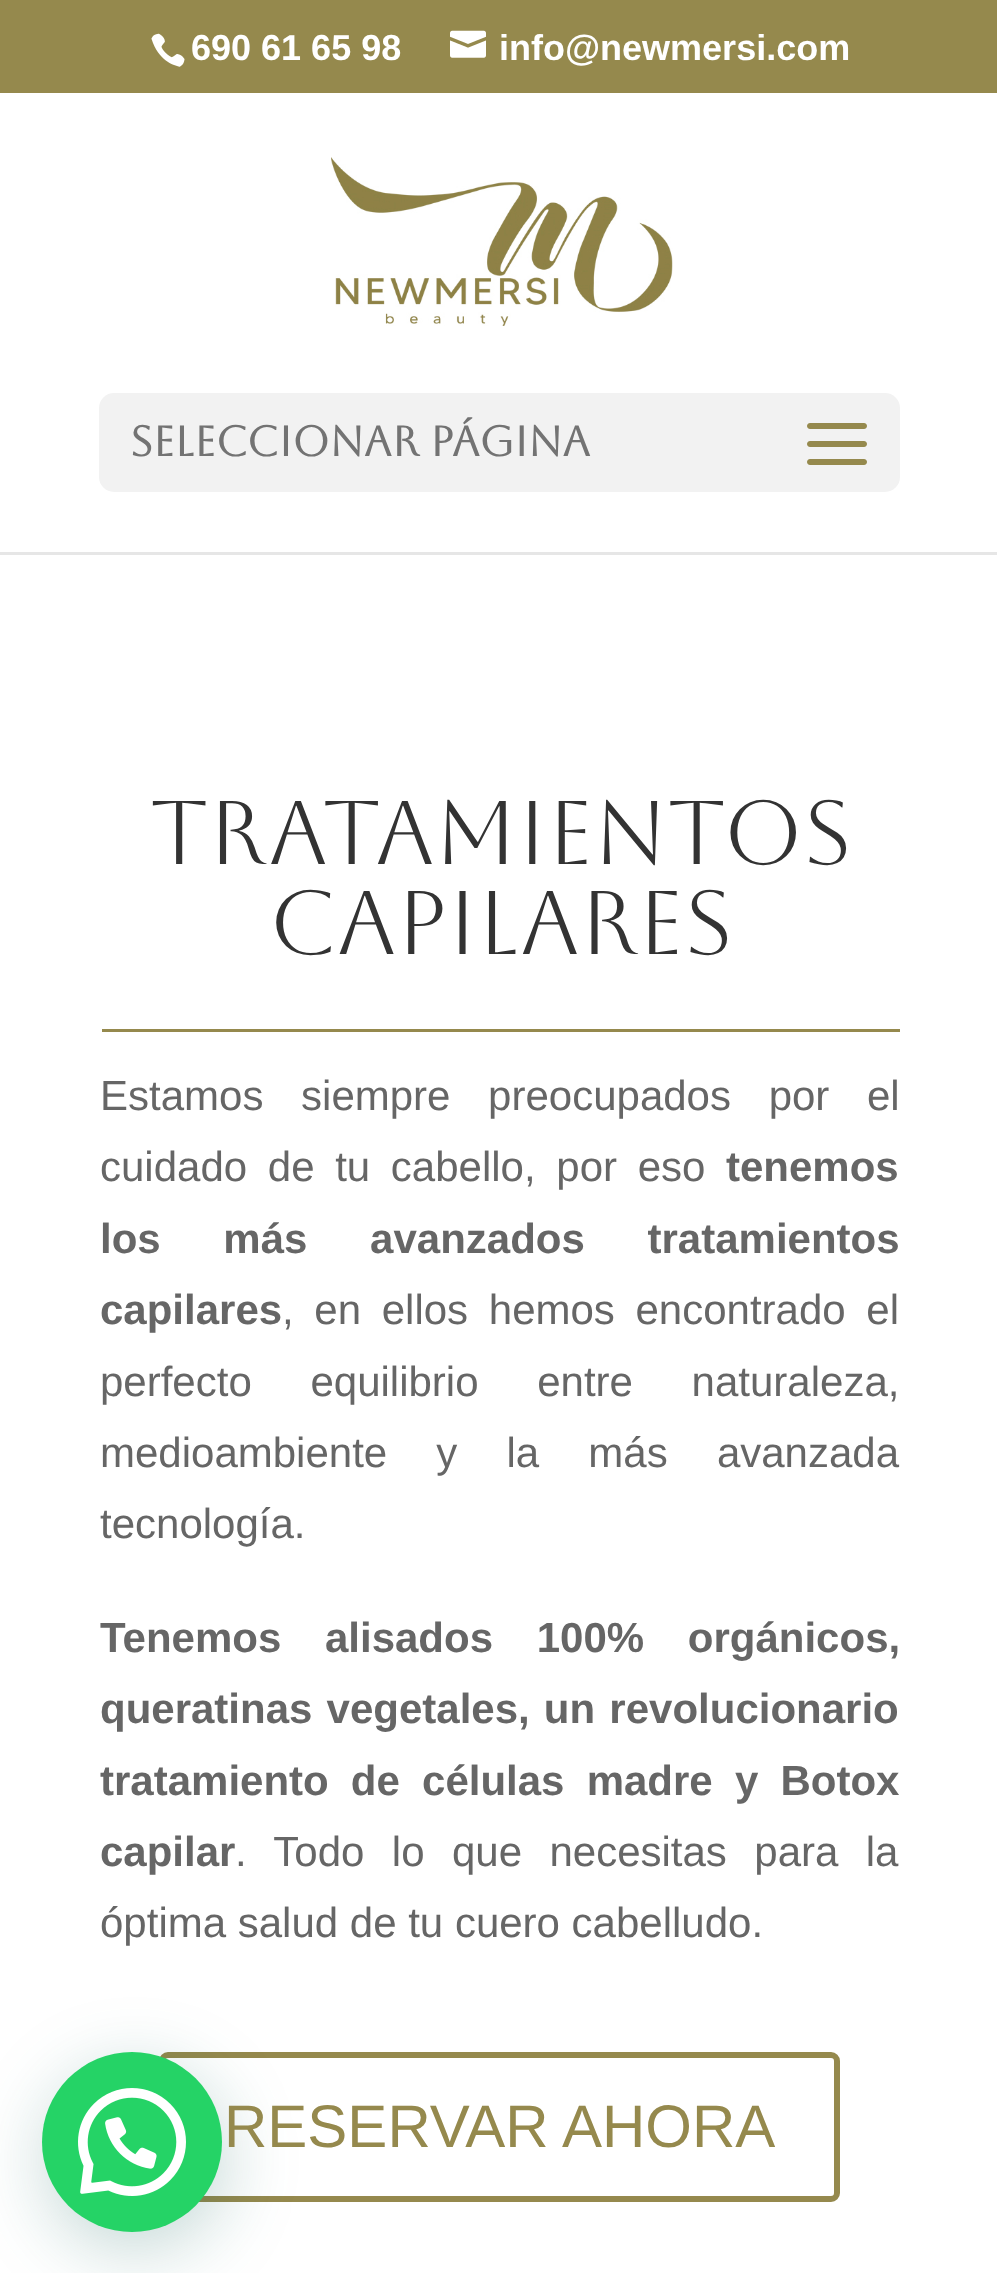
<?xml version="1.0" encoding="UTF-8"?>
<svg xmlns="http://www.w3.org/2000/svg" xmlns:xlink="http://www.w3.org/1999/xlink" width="997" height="2273">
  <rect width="100%" height="100%" fill="#ffffff" />
  <rect width="997" height="93" fill="#95894d" />
  <image x="151" y="33" width="34" height="34" xlink:href="image1.png" />
  <image x="450" y="30" width="36" height="28" xlink:href="image2.png" />
  <rect y="552" width="997" height="3" fill="#e6e6e6" />
  <image x="331" y="157" width="342" height="169" xlink:href="image3.png" />
  <rect x="99" y="393" width="801" height="99" rx="15" fill="#f2f2f2" />
  <image x="807" y="423" width="60" height="42" xlink:href="image4.png" />
  <rect x="102" y="1029" width="798" height="3" fill="#95894d" />
  <rect x="162" y="2055" width="675" height="144" rx="6" fill="none" stroke="#95894d" stroke-width="6" />
  <rect x="45" y="2070" width="180" height="180" rx="90" fill="#075e54" fill-opacity="0.24" filter="blur(36px)" />
  <circle cx="132" cy="2142" r="90" fill="#25d366" />
  <image x="78" y="2088" width="108" height="108" xlink:href="image5.png" />
  <text x="191" y="60" style="font-family: Liberation Sans; font-size: 36px; font-weight: bold; fill: #ffffff">690 61 65 98</text>
  <text x="499" y="60" style="font-family: Liberation Sans; font-size: 36px; font-weight: bold; fill: #ffffff">info@newmersi.com</text>
  <text x="130" y="456" style="font-family: Aboreto; font-size: 42px; font-weight: bold; fill: #737373">Seleccionar página</text>
  <text x="150" y="864" style="font-family: Aboreto; font-size: 90px; fill: #333333">Tratamientos</text>
  <text x="269" y="954" style="font-family: Aboreto; font-size: 90px; fill: #333333">capilares</text>
  <text x="100" y="1110" word-spacing="26" style="font-family: Liberation Sans; font-size: 42px; fill: #666666">Estamos siempre preocupados por el</text>
  <text x="100" y="1181" word-spacing="9" style="font-family: Liberation Sans; font-size: 42px; fill: #666666">cuidado de tu cabello, por eso</text>
  <text x="726" y="1181" style="font-family: Liberation Sans; font-size: 42px; font-weight: bold; fill: #666666">tenemos</text>
  <text x="100" y="1253" word-spacing="51" style="font-family: Liberation Sans; font-size: 42px; font-weight: bold; fill: #666666">los más avanzados tratamientos</text>
  <text x="100" y="1324" style="font-family: Liberation Sans; font-size: 42px; font-weight: bold; fill: #666666">capilares</text>
  <text x="282" y="1324" word-spacing="9" style="font-family: Liberation Sans; font-size: 42px; fill: #666666">, en ellos hemos encontrado el</text>
  <text x="100" y="1396" word-spacing="47" style="font-family: Liberation Sans; font-size: 42px; fill: #666666">perfecto equilibrio entre naturaleza,</text>
  <text x="100" y="1467" word-spacing="37.5" style="font-family: Liberation Sans; font-size: 42px; fill: #666666">medioambiente y la más avanzada</text>
  <text x="100" y="1538" style="font-family: Liberation Sans; font-size: 42px; fill: #666666">tecnología.</text>
  <text x="100" y="1652" word-spacing="32" style="font-family: Liberation Sans; font-size: 42px; font-weight: bold; fill: #666666">Tenemos alisados 100% orgánicos,</text>
  <text x="100" y="1723" word-spacing="2.5" style="font-family: Liberation Sans; font-size: 42px; font-weight: bold; fill: #666666">queratinas vegetales, un revolucionario</text>
  <text x="100" y="1795" word-spacing="10.5" style="font-family: Liberation Sans; font-size: 42px; font-weight: bold; fill: #666666">tratamiento de células madre y Botox</text>
  <text x="100" y="1866" style="font-family: Liberation Sans; font-size: 42px; font-weight: bold; fill: #666666">capilar</text>
  <text x="235" y="1866" word-spacing="15.75" style="font-family: Liberation Sans; font-size: 42px; fill: #666666">. Todo lo que necesitas para la</text>
  <text x="100" y="1937" style="font-family: Liberation Sans; font-size: 42px; fill: #666666">óptima salud de tu cuero cabelludo.</text>
  <text x="224" y="2147" style="font-family: Liberation Sans; font-size: 60px; fill: #95894d">RESERVAR AHORA</text>
</svg>
